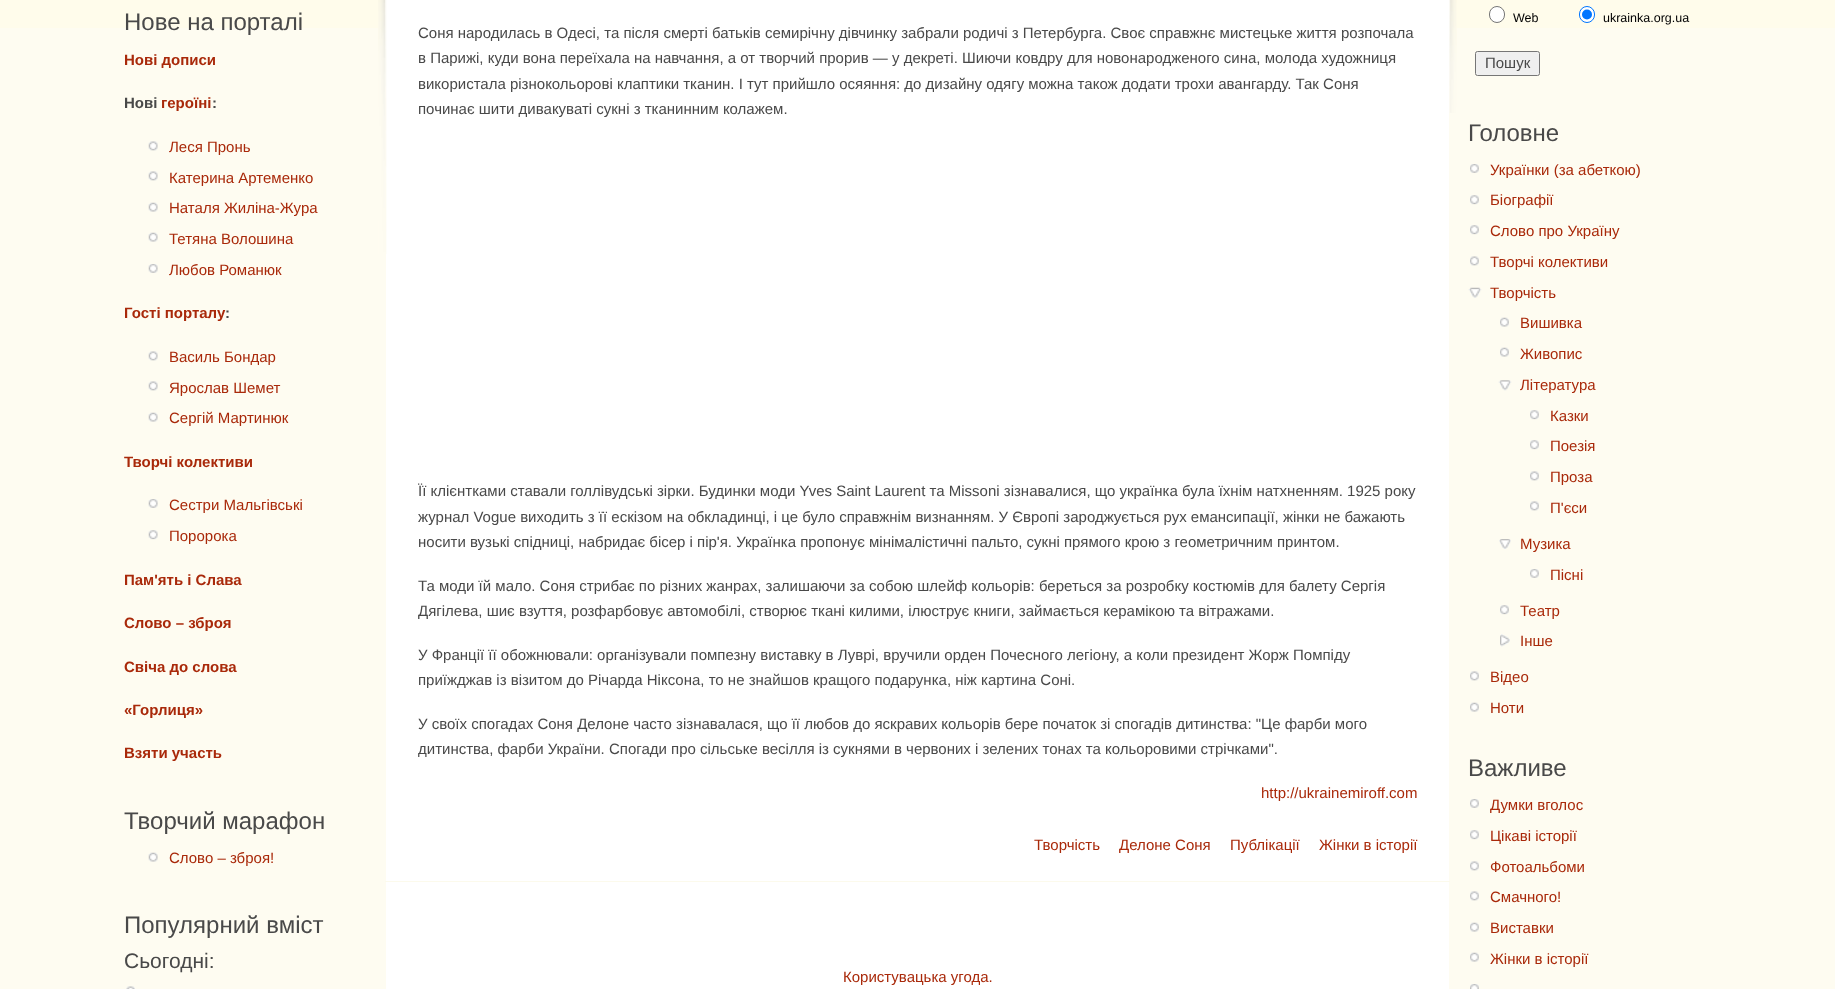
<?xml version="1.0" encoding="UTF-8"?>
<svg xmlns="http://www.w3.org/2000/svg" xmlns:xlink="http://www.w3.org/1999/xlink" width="1835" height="989">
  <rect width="100%" height="100%" fill="#fefcf1" />
  <rect width="1835" height="28" fill="#fffceb" />
  <image x="148" y="141" width="10" height="10" xlink:href="image1.png" />
  <image x="148" y="171" width="10" height="10" xlink:href="image1.png" />
  <image x="148" y="202" width="10" height="10" xlink:href="image2.png" />
  <image x="148" y="232" width="10" height="10" xlink:href="image2.png" />
  <image x="148" y="264" width="10" height="9" xlink:href="image3.png" />
  <image x="148" y="351" width="10" height="10" xlink:href="image1.png" />
  <image x="148" y="381" width="10" height="10" xlink:href="image1.png" />
  <image x="148" y="412" width="10" height="10" xlink:href="image2.png" />
  <image x="148" y="499" width="10" height="9" xlink:href="image3.png" />
  <image x="148" y="530" width="10" height="10" xlink:href="image4.png" />
  <image x="148" y="852" width="10" height="10" xlink:href="image2.png" />
  <image x="126" y="986" width="9" height="3" xlink:href="image5.png" />
  <rect x="386" width="1063" height="989" fill="#ffffff" />
  <image x="1449" y="0" width="8" height="113" xlink:href="image6.png" />
  <image x="378" y="0" width="9" height="254" xlink:href="image7.png" />
  <rect x="385" y="881" width="1065" height="1" fill="#fcfaec" />
  <rect x="1489.5" y="6.5" width="15" height="16" rx="7.5" fill="#ffffff" stroke="#767676" />
  <rect x="1579.5" y="6.5" width="15" height="16" rx="7.5" fill="#ffffff" stroke="#0075ff" />
  <circle cx="1587" cy="14.5" r="5" fill="#0075ff" />
  <rect x="1475.5" y="51.5" width="64" height="24" rx="2" fill="#efefef" stroke="#767676" />
  <image x="1470" y="164" width="9" height="9" xlink:href="image8.png" />
  <image x="1470" y="195" width="9" height="10" xlink:href="image9.png" />
  <image x="1470" y="225" width="9" height="10" xlink:href="image9.png" />
  <image x="1470" y="256" width="9" height="10" xlink:href="image10.png" />
  <image x="1468" y="287" width="14" height="11" xlink:href="image11.png" />
  <image x="1500" y="317" width="9" height="10" xlink:href="image12.png" />
  <image x="1500" y="347" width="9" height="10" xlink:href="image12.png" />
  <image x="1498" y="380" width="14" height="11" xlink:href="image13.png" />
  <image x="1530" y="410" width="9" height="10" xlink:href="image9.png" />
  <image x="1530" y="440" width="9" height="10" xlink:href="image9.png" />
  <image x="1530" y="471" width="9" height="10" xlink:href="image10.png" />
  <image x="1530" y="501" width="9" height="10" xlink:href="image10.png" />
  <image x="1499" y="539" width="12" height="10" xlink:href="image14.png" />
  <image x="1530" y="569" width="9" height="9" xlink:href="image8.png" />
  <image x="1500" y="605" width="9" height="10" xlink:href="image9.png" />
  <image x="1500" y="634" width="10" height="13" xlink:href="image15.png" />
  <image x="1470" y="671" width="9" height="10" xlink:href="image10.png" />
  <image x="1470" y="702" width="9" height="10" xlink:href="image12.png" />
  <image x="1470" y="799" width="9" height="9" xlink:href="image8.png" />
  <image x="1470" y="830" width="9" height="10" xlink:href="image9.png" />
  <image x="1470" y="861" width="9" height="10" xlink:href="image10.png" />
  <image x="1470" y="891" width="9" height="10" xlink:href="image10.png" />
  <image x="1470" y="922" width="9" height="10" xlink:href="image12.png" />
  <image x="1470" y="952" width="9" height="10" xlink:href="image12.png" />
  <image x="1470" y="984" width="9" height="5" xlink:href="image16.png" />
  <text x="124" y="30" style="font-family: Liberation Sans; font-size: 24px; fill: #494949">Нове на порталі</text>
  <text x="124" y="65" style="font-family: Liberation Sans; font-size: 15px; font-weight: bold; fill: #a9290a">Нові дописи</text>
  <text x="124" y="108" style="font-family: Liberation Sans; font-size: 15px; font-weight: bold; fill: #494949">Нові</text>
  <text x="161" y="108" style="font-family: Liberation Sans; font-size: 15px; font-weight: bold; fill: #a9290a">героїні</text>
  <text x="212" y="108" style="font-family: Liberation Sans; font-size: 15px; font-weight: bold; fill: #494949">:</text>
  <text x="169" y="152" style="font-family: Liberation Sans; font-size: 15px; fill: #a9290a">Леся Пронь</text>
  <text x="169" y="183" style="font-family: Liberation Sans; font-size: 15px; fill: #a9290a">Катерина Артеменко</text>
  <text x="169" y="213" style="font-family: Liberation Sans; font-size: 15px; fill: #a9290a">Наталя Жиліна-Жура</text>
  <text x="169" y="244" style="font-family: Liberation Sans; font-size: 15px; fill: #a9290a">Тетяна Волошина</text>
  <text x="169" y="275" style="font-family: Liberation Sans; font-size: 15px; fill: #a9290a">Любов Романюк</text>
  <text x="124" y="318" style="font-family: Liberation Sans; font-size: 15px; font-weight: bold; fill: #a9290a">Гості порталу</text>
  <text x="225" y="318" style="font-family: Liberation Sans; font-size: 15px; font-weight: bold; fill: #494949">:</text>
  <text x="169" y="362" style="font-family: Liberation Sans; font-size: 15px; fill: #a9290a">Василь Бондар</text>
  <text x="169" y="393" style="font-family: Liberation Sans; font-size: 15px; fill: #a9290a">Ярослав Шемет</text>
  <text x="169" y="423" style="font-family: Liberation Sans; font-size: 15px; fill: #a9290a">Сергій Мартинюк</text>
  <text x="124" y="467" style="font-family: Liberation Sans; font-size: 15px; font-weight: bold; fill: #a9290a">Творчі колективи</text>
  <text x="169" y="510" style="font-family: Liberation Sans; font-size: 15px; fill: #a9290a">Сестри Мальгівські</text>
  <text x="169" y="541" style="font-family: Liberation Sans; font-size: 15px; fill: #a9290a">Поророка</text>
  <text x="124" y="585" style="font-family: Liberation Sans; font-size: 15px; font-weight: bold; fill: #a9290a">Пам'ять і Слава</text>
  <text x="124" y="628" style="font-family: Liberation Sans; font-size: 15px; font-weight: bold; fill: #a9290a">Слово – зброя</text>
  <text x="124" y="672" style="font-family: Liberation Sans; font-size: 15px; font-weight: bold; fill: #a9290a">Свіча до слова</text>
  <text x="124" y="715" style="font-family: Liberation Sans; font-size: 15px; font-weight: bold; fill: #a9290a">«Горлиця»</text>
  <text x="124" y="758" style="font-family: Liberation Sans; font-size: 15px; font-weight: bold; fill: #a9290a">Взяти участь</text>
  <text x="124" y="829" style="font-family: Liberation Sans; font-size: 24px; fill: #494949">Творчий марафон</text>
  <text x="169" y="863" style="font-family: Liberation Sans; font-size: 15px; fill: #a9290a">Слово – зброя!</text>
  <text x="124" y="933" style="font-family: Liberation Sans; font-size: 24px; fill: #494949">Популярний вміст</text>
  <text x="124" y="968" style="font-family: Liberation Sans; font-size: 21px; fill: #494949">Сьогодні:</text>
  <text x="418" y="38" style="font-family: Liberation Sans; font-size: 15px; fill: #494949">Соня народилась в Одесі, та після смерті батьків семирічну дівчинку забрали родичі з Петербурга. Своє справжнє мистецьке життя розпочала</text>
  <text x="418" y="63" style="font-family: Liberation Sans; font-size: 15px; fill: #494949">в Парижі, куди вона переїхала на навчання, а от творчий прорив — у декреті. Шиючи ковдру для новонародженого сина, молода художниця</text>
  <text x="418" y="89" style="font-family: Liberation Sans; font-size: 15px; fill: #494949">використала різнокольорові клаптики тканин. І тут прийшло осяяння: до дизайну одягу можна також додати трохи авангарду. Так Соня</text>
  <text x="418" y="114" style="font-family: Liberation Sans; font-size: 15px; fill: #494949">починає шити дивакуваті сукні з тканинним колажем.</text>
  <text x="418" y="496" style="font-family: Liberation Sans; font-size: 15px; fill: #494949">Її клієнтками ставали голлівудські зірки. Будинки моди Yves Saint Laurent та Missoni зізнавалися, що українка була їхнім натхненням. 1925 року</text>
  <text x="418" y="522" style="font-family: Liberation Sans; font-size: 15px; fill: #494949">журнал Vogue виходить з її ескізом на обкладинці, і це було справжнім визнанням. У Європі зароджується рух емансипації, жінки не бажають</text>
  <text x="418" y="547" style="font-family: Liberation Sans; font-size: 15px; fill: #494949">носити вузькі спідниці, набридає бісер і пір'я. Українка пропонує мінімалістичні пальто, сукні прямого крою з геометричним принтом.</text>
  <text x="418" y="591" style="font-family: Liberation Sans; font-size: 15px; fill: #494949">Та моди їй мало. Соня стрибає по різних жанрах, залишаючи за собою шлейф кольорів: береться за розробку костюмів для балету Сергія</text>
  <text x="418" y="616" style="font-family: Liberation Sans; font-size: 15px; fill: #494949">Дягілева, шиє взуття, розфарбовує автомобілі, створює ткані килими, ілюструє книги, займається керамікою та вітражами.</text>
  <text x="418" y="660" style="font-family: Liberation Sans; font-size: 15px; fill: #494949">У Франції її обожнювали: організували помпезну виставку в Луврі, вручили орден Почесного легіону, а коли президент Жорж Помпіду</text>
  <text x="418" y="685" style="font-family: Liberation Sans; font-size: 15px; fill: #494949">приїжджав із візитом до Річарда Ніксона, то не знайшов кращого подарунка, ніж картина Соні.</text>
  <text x="418" y="729" style="font-family: Liberation Sans; font-size: 15px; fill: #494949">У своїх спогадах Соня Делоне часто зізнавалася, що її любов до яскравих кольорів бере початок зі спогадів дитинства: "Це фарби мого</text>
  <text x="418" y="754" style="font-family: Liberation Sans; font-size: 15px; fill: #494949">дитинства, фарби України. Спогади про сільське весілля із сукнями в червоних і зелених тонах та кольоровими стрічками".</text>
  <text x="1261" y="798" style="font-family: Liberation Sans; font-size: 15px; fill: #a9290a">http://ukrainemiroff.com</text>
  <text x="1034" y="850" style="font-family: Liberation Sans; font-size: 15px; fill: #a9290a">Творчість</text>
  <text x="1119" y="850" style="font-family: Liberation Sans; font-size: 15px; fill: #a9290a">Делоне Соня</text>
  <text x="1230" y="850" style="font-family: Liberation Sans; font-size: 15px; fill: #a9290a">Публікації</text>
  <text x="1319" y="850" style="font-family: Liberation Sans; font-size: 15px; fill: #a9290a">Жінки в історії</text>
  <text x="843" y="982" style="font-family: Liberation Sans; font-size: 15px; fill: #a9290a">Користувацька угода.</text>
  <text x="1513" y="22" style="font-family: Liberation Sans; font-size: 12.5px; fill: #000000">Web</text>
  <text x="1603" y="22" style="font-family: Liberation Sans; font-size: 12.5px; fill: #000000">ukrainka.org.ua</text>
  <text x="1485" y="68" style="font-family: Liberation Sans; font-size: 15px; fill: #494949">Пошук</text>
  <text x="1468" y="141" style="font-family: Liberation Sans; font-size: 24px; fill: #494949">Головне</text>
  <text x="1490" y="175" style="font-family: Liberation Sans; font-size: 15px; fill: #a9290a">Українки (за абеткою)</text>
  <text x="1490" y="205" style="font-family: Liberation Sans; font-size: 15px; fill: #a9290a">Біографії</text>
  <text x="1490" y="236" style="font-family: Liberation Sans; font-size: 15px; fill: #a9290a">Слово про Україну</text>
  <text x="1490" y="267" style="font-family: Liberation Sans; font-size: 15px; fill: #a9290a">Творчі колективи</text>
  <text x="1490" y="298" style="font-family: Liberation Sans; font-size: 15px; fill: #a9290a">Творчість</text>
  <text x="1520" y="328" style="font-family: Liberation Sans; font-size: 15px; fill: #a9290a">Вишивка</text>
  <text x="1520" y="359" style="font-family: Liberation Sans; font-size: 15px; fill: #a9290a">Живопис</text>
  <text x="1520" y="390" style="font-family: Liberation Sans; font-size: 15px; fill: #a9290a">Література</text>
  <text x="1550" y="421" style="font-family: Liberation Sans; font-size: 15px; fill: #a9290a">Казки</text>
  <text x="1550" y="451" style="font-family: Liberation Sans; font-size: 15px; fill: #a9290a">Поезія</text>
  <text x="1550" y="482" style="font-family: Liberation Sans; font-size: 15px; fill: #a9290a">Проза</text>
  <text x="1550" y="513" style="font-family: Liberation Sans; font-size: 15px; fill: #a9290a">П'єси</text>
  <text x="1520" y="549" style="font-family: Liberation Sans; font-size: 15px; fill: #a9290a">Музика</text>
  <text x="1550" y="580" style="font-family: Liberation Sans; font-size: 15px; fill: #a9290a">Пісні</text>
  <text x="1520" y="616" style="font-family: Liberation Sans; font-size: 15px; fill: #a9290a">Театр</text>
  <text x="1520" y="646" style="font-family: Liberation Sans; font-size: 15px; fill: #a9290a">Інше</text>
  <text x="1490" y="682" style="font-family: Liberation Sans; font-size: 15px; fill: #a9290a">Відео</text>
  <text x="1490" y="713" style="font-family: Liberation Sans; font-size: 15px; fill: #a9290a">Ноти</text>
  <text x="1468" y="776" style="font-family: Liberation Sans; font-size: 24px; fill: #494949">Важливе</text>
  <text x="1490" y="810" style="font-family: Liberation Sans; font-size: 15px; fill: #a9290a">Думки вголос</text>
  <text x="1490" y="841" style="font-family: Liberation Sans; font-size: 15px; fill: #a9290a">Цікаві історії</text>
  <text x="1490" y="872" style="font-family: Liberation Sans; font-size: 15px; fill: #a9290a">Фотоальбоми</text>
  <text x="1490" y="902" style="font-family: Liberation Sans; font-size: 15px; fill: #a9290a">Смачного!</text>
  <text x="1490" y="933" style="font-family: Liberation Sans; font-size: 15px; fill: #a9290a">Виставки</text>
  <text x="1490" y="964" style="font-family: Liberation Sans; font-size: 15px; fill: #a9290a">Жінки в історії</text>
</svg>
